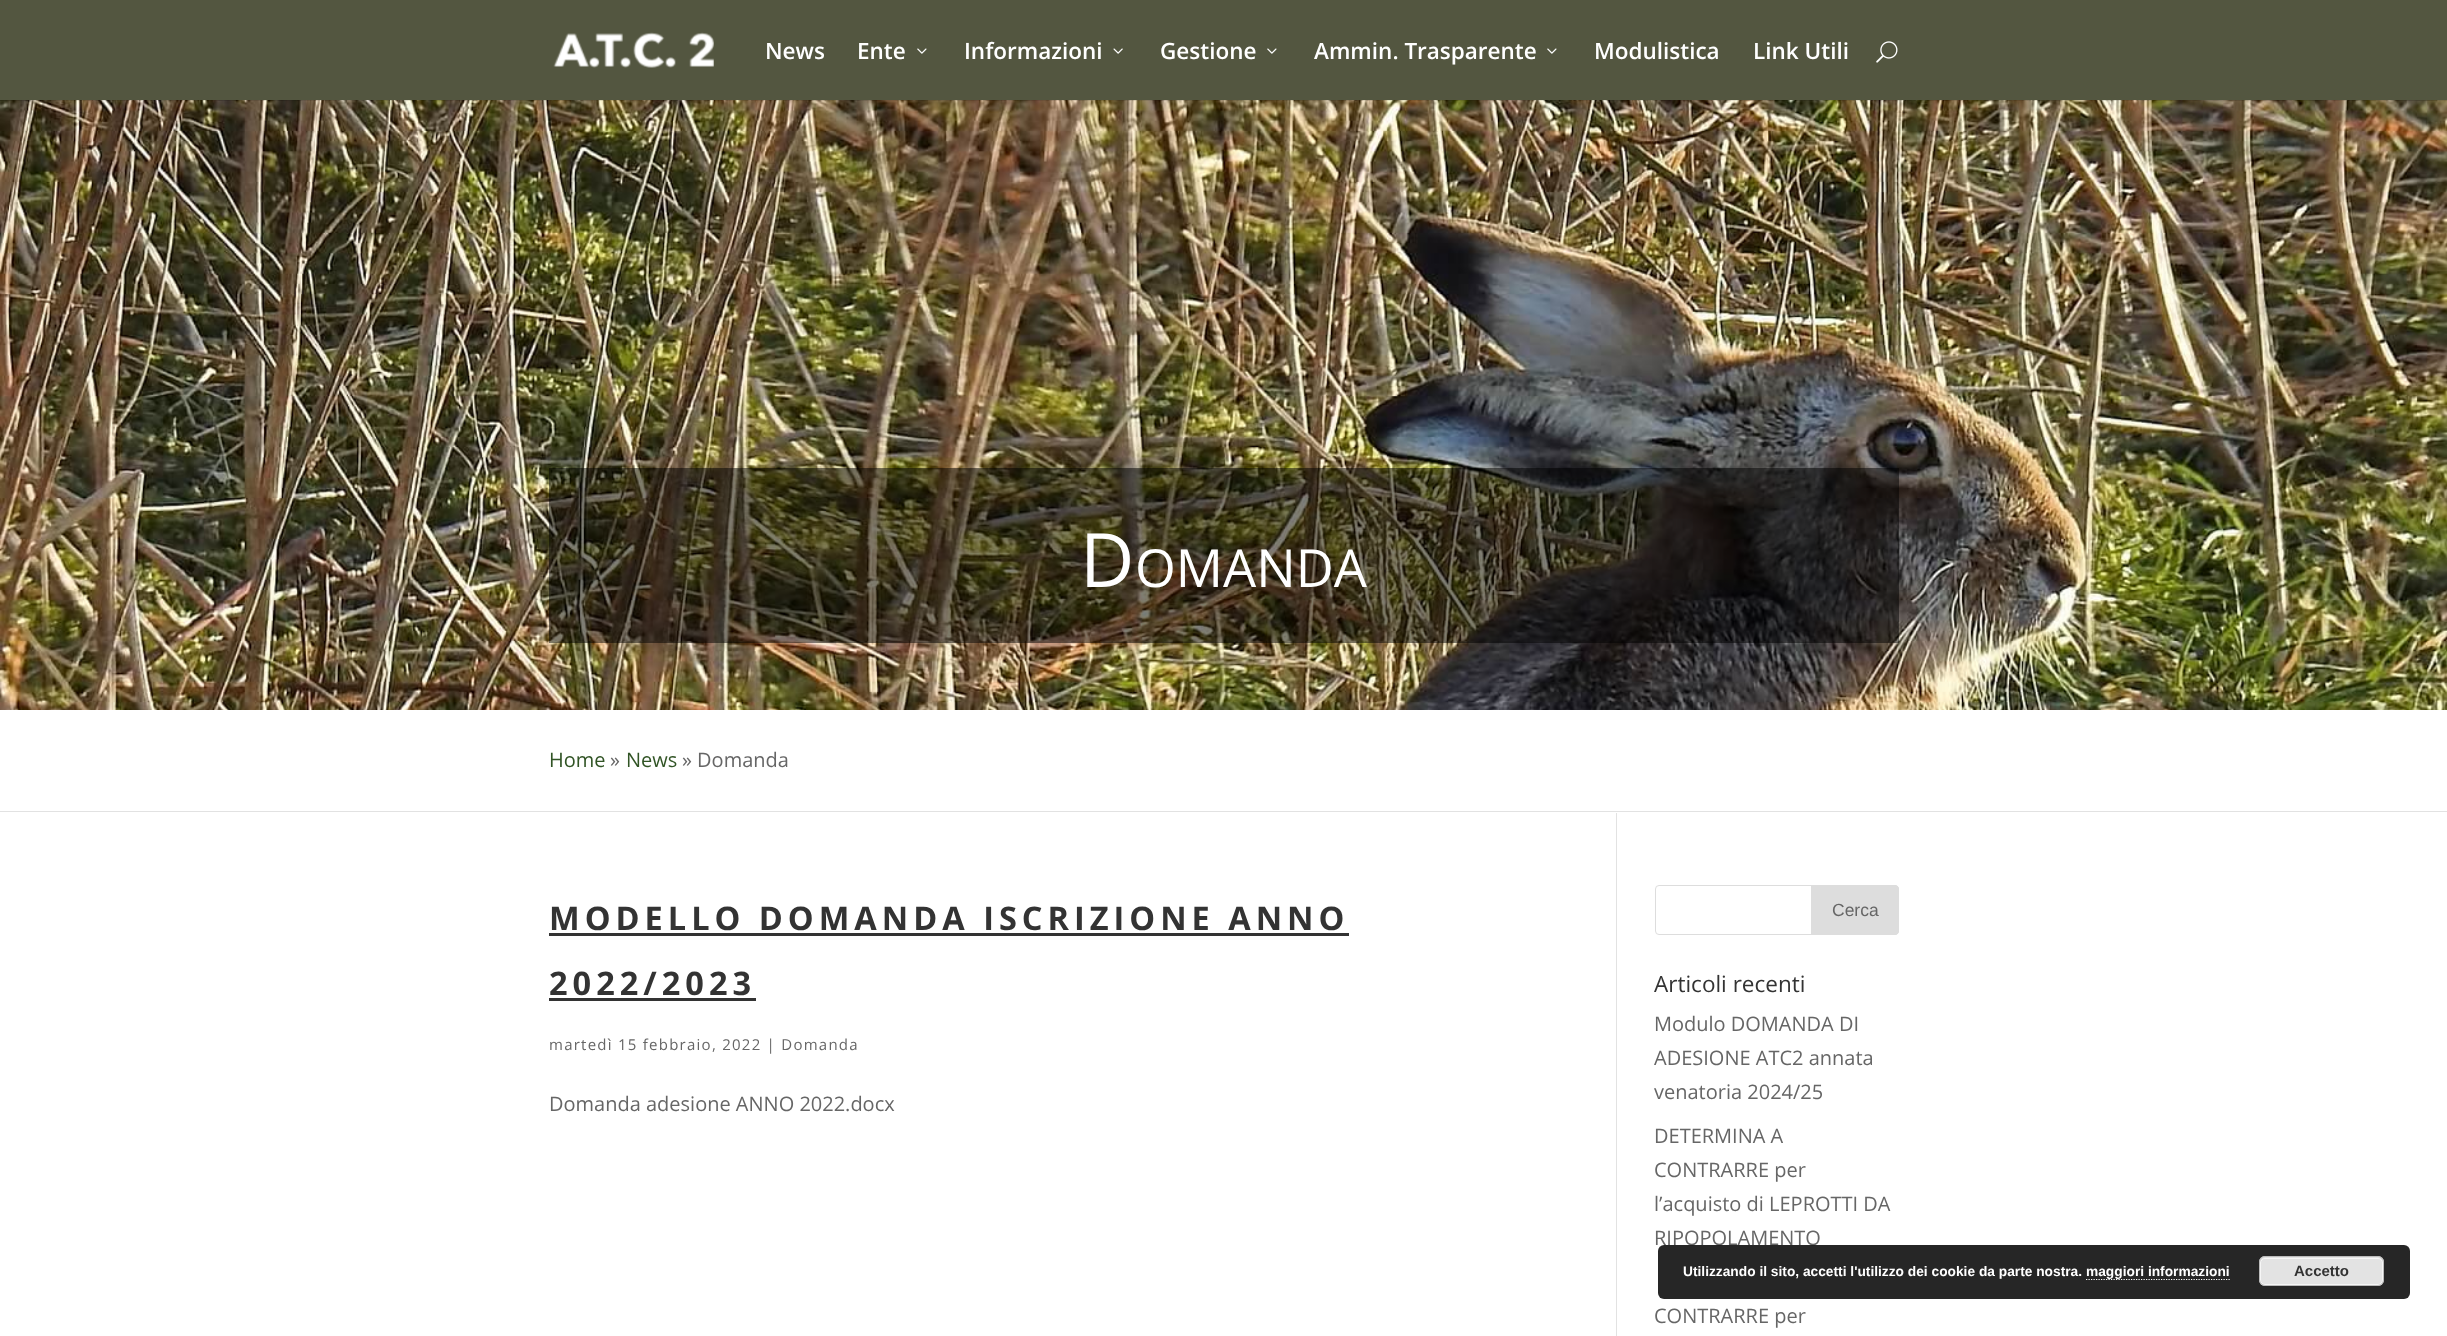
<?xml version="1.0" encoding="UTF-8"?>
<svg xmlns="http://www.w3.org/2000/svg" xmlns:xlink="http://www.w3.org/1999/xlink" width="2447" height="1336">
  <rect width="100%" height="100%" fill="#ffffff" />
  <image x="0" y="100" width="2447" height="610" xlink:href="image5.png" />
  <path d="M 0 100 v 1 h 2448 v -100 v 99 z" fill="#000000" fill-opacity="0.1" />
  <rect width="2447" height="100" fill="#535640" />
  <image x="553" y="32" width="161" height="36" xlink:href="image1.png" />
  <image x="917" y="48" width="10" height="6" xlink:href="image2.png" />
  <image x="1113" y="48" width="10" height="6" xlink:href="image3.png" />
  <image x="1267" y="48" width="10" height="6" xlink:href="image2.png" />
  <image x="1547" y="48" width="10" height="6" xlink:href="image2.png" />
  <image x="1876" y="41" width="22" height="22" xlink:href="image4.png" />
  <rect x="549" y="468" width="1350" height="175" fill="#000000" fill-opacity="0.5" />
  <rect y="811" width="2447" height="1" fill="#e2e2e2" />
  <rect x="1616" y="813" width="1" height="523" fill="#e2e2e2" />
  <rect x="549" y="933" width="800" height="3" fill="#333333" />
  <rect x="549" y="998" width="207" height="3" fill="#333333" />
  <rect x="1655.5" y="885.5" width="243" height="49" rx="3.5" fill="none" stroke="#dddddd" />
  <path d="M 1811.5 885.5 h 83.5 c 2 0 3.5 1.5 3.5 3.5 v 42 c 0 2 -1.5 3.5 -3.5 3.5 h -83.5 z" fill="#dddddd" stroke="#dddddd" />
  <text x="765" y="59" style="font-family: Open Sans; font-size: 22.5px; font-weight: 600; fill: #ffffff">News</text>
  <text x="857" y="59" style="font-family: Open Sans; font-size: 22.5px; font-weight: 600; fill: #ffffff">Ente</text>
  <text x="964" y="59" style="font-family: Open Sans; font-size: 22.5px; font-weight: 600; fill: #ffffff">Informazioni</text>
  <text x="1160" y="59" style="font-family: Open Sans; font-size: 22.5px; font-weight: 600; fill: #ffffff">Gestione</text>
  <text x="1314" y="59" style="font-family: Open Sans; font-size: 22.5px; font-weight: 600; fill: #ffffff">Ammin. Trasparente</text>
  <text x="1594" y="59" style="font-family: Open Sans; font-size: 22.5px; font-weight: 600; fill: #ffffff">Modulistica</text>
  <text x="1753" y="59" style="font-family: Open Sans; font-size: 22.5px; font-weight: 600; fill: #ffffff">Link Utili</text>
  <text x="1080" y="587" style="font-family: Open Sans; font-size: 75px; fill: #ffffff">D</text>
  <text x="1135" y="587" style="font-family: Open Sans; font-size: 52.5px; fill: #ffffff">OMANDA</text>
  <text x="549" y="767" style="font-family: Open Sans; font-size: 20px; fill: #315425">Home</text>
  <text x="610" y="767" style="font-family: Open Sans; font-size: 20px; fill: #666666">»</text>
  <text x="626" y="767" style="font-family: Open Sans; font-size: 20px; fill: #315425">News</text>
  <text x="682" y="767" style="font-family: Open Sans; font-size: 20px; fill: #666666">» Domanda</text>
  <text x="549" y="930" style="font-family: Open Sans; font-size: 32.5px; font-weight: bold; letter-spacing: 5px; fill: #333333">MODELLO DOMANDA ISCRIZIONE ANNO</text>
  <text x="549" y="995" style="font-family: Open Sans; font-size: 32.5px; font-weight: bold; letter-spacing: 5px; fill: #333333">2022/2023</text>
  <text x="549" y="1050" style="font-family: Open Sans; font-size: 15px; letter-spacing: 1.25px; fill: #666666">martedì 15 febbraio, 2022 | Domanda</text>
  <text x="549" y="1111" style="font-family: Open Sans; font-size: 20px; fill: #666666">Domanda adesione ANNO 2022.docx</text>
  <text x="1832" y="916" style="font-family: Liberation Sans; font-size: 17.5px; fill: #666666">Cerca</text>
  <text x="1654" y="992" style="font-family: Open Sans; font-size: 22.5px; fill: #333333">Articoli recenti</text>
  <text x="1654" y="1031" style="font-family: Open Sans; font-size: 20px; fill: #666666">Modulo DOMANDA DI</text>
  <text x="1654" y="1065" style="font-family: Open Sans; font-size: 20px; fill: #666666">ADESIONE ATC2 annata</text>
  <text x="1654" y="1099" style="font-family: Open Sans; font-size: 20px; fill: #666666">venatoria 2024/25</text>
  <text x="1654" y="1143" style="font-family: Open Sans; font-size: 20px; fill: #666666">DETERMINA A</text>
  <text x="1654" y="1177" style="font-family: Open Sans; font-size: 20px; fill: #666666">CONTRARRE per</text>
  <text x="1654" y="1211" style="font-family: Open Sans; font-size: 20px; fill: #666666">l’acquisto di LEPROTTI DA</text>
  <text x="1654" y="1245" style="font-family: Open Sans; font-size: 20px; fill: #666666">RIPOPOLAMENTO</text>
  <text x="1654" y="1323" style="font-family: Open Sans; font-size: 20px; fill: #666666">CONTRARRE per</text>
  <rect x="1658" y="1245" width="752" height="54" rx="6" fill="#000000" fill-opacity="0.85" />
  <text x="1683" y="1276" style="font-family: Liberation Sans; font-size: 13.75px; font-weight: bold; fill: #ffffff">Utilizzando il sito, accetti l'utilizzo dei cookie da parte nostra.</text>
  <path d="M 2086 1279.5 h 144" fill="none" stroke="#ffffff" stroke-width="1.2" stroke-dasharray="1.25 1.25" />
  <text x="2086" y="1276" style="font-family: Liberation Sans; font-size: 13.75px; font-weight: bold; fill: #ffffff">maggiori informazioni</text>
  <rect x="2259" y="1256" width="125" height="30" rx="6" fill="#e3e3e3" />
  <rect x="2260.5" y="1258.5" width="122" height="26" rx="4.5" fill="none" stroke="#f6f6f6" />
  <rect x="2259.5" y="1256.5" width="124" height="29" rx="5.5" fill="none" stroke="#bbbbbb" />
  <text x="2294" y="1276" style="font-family: Liberation Sans; font-size: 15px; font-weight: bold; fill: #333333">Accetto</text>
</svg>
